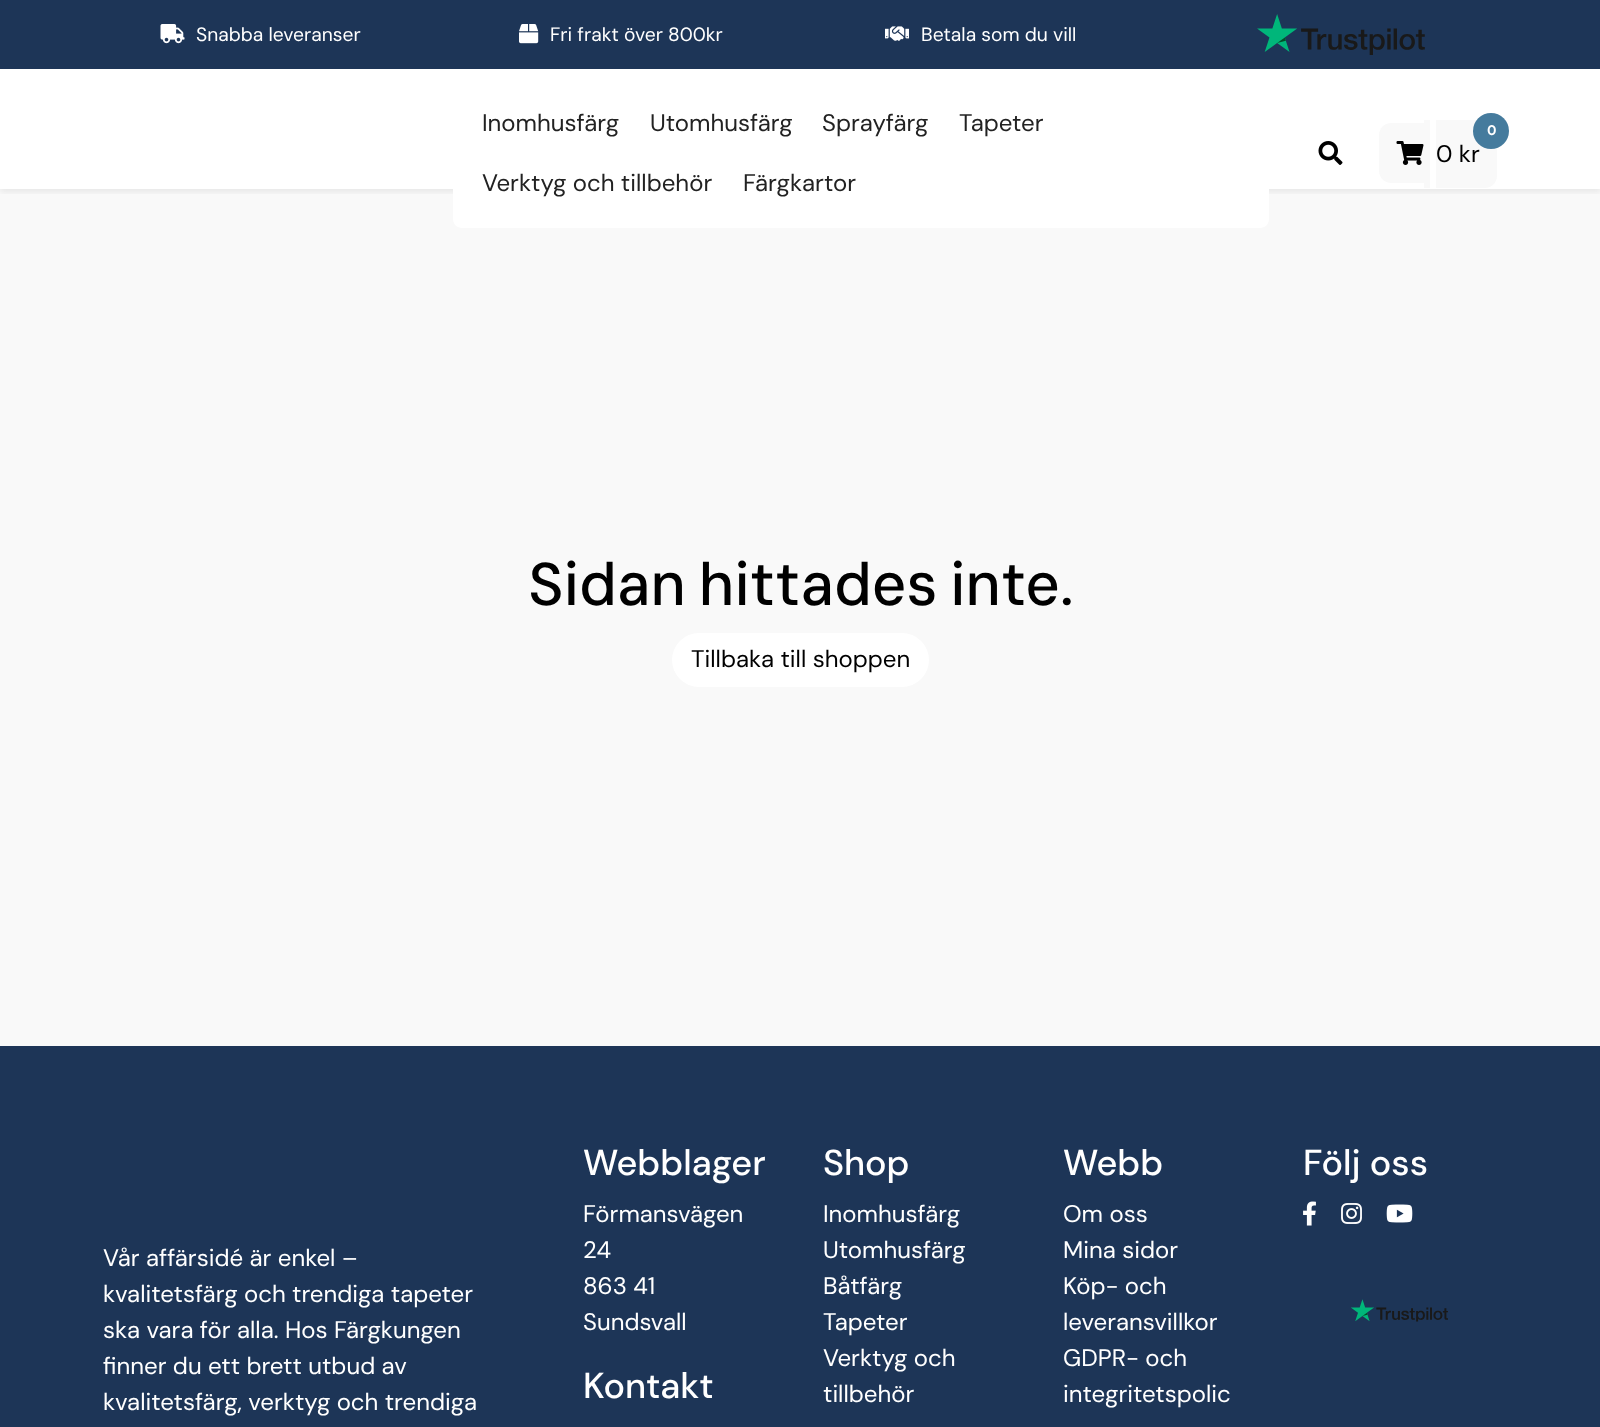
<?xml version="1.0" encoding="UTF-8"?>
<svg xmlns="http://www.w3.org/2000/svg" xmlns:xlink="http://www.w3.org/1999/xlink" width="1600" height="1427">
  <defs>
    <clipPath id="clip1"><rect x="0" y="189" width="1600" height="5" /></clipPath>
  </defs>
  <rect width="100%" height="100%" fill="#ffffff" />
  <rect width="1600" height="69" fill="#1d3557" />
  <image x="160" y="24" width="25" height="20" xlink:href="image1.png" />
  <image x="519" y="24" width="20" height="20" xlink:href="image2.png" />
  <image x="885" y="26" width="24" height="15" xlink:href="image3.png" />
  <image x="1257" y="14" width="168" height="41" xlink:href="image4.png" />
  <rect y="189" width="1600" height="857" fill="#f9f9f9" />
  <g clip-path="url(#clip1)">
    <rect y="72" width="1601" height="120" fill="#000000" fill-opacity="0.07" filter="blur(3px)" />
  </g>
  <path d="M 453 93 h 816 v 126 c 0 5 -4 9 -9 9 h -798 c -5 0 -9 -4 -9 -9 z" fill="#ffffff" />
  <image x="1318" y="141" width="25" height="24" xlink:href="image5.png" />
  <path d="M 1391 123 h 33 v 60 h -33 c -6.5 0 -12 -5.5 -12 -12 v -36 c 0 -6.5 5.5 -12 12 -12 z" fill="#f9f9f9" />
  <rect x="1424" y="120" width="6" height="68" fill="#f9f9f9" />
  <rect x="1436" y="120" width="24" height="68" fill="#f9f9f9" />
  <path d="M 1460 120 h 25 c 6.5 0 12 5.5 12 12 v 44 c 0 6.5 -5.5 12 -12 12 h -25 z" fill="#f9f9f9" />
  <image x="1396" y="141" width="28" height="24" xlink:href="image6.png" />
  <rect x="672" y="633" width="257" height="54" rx="27" fill="#ffffff" />
  <rect y="1046" width="1600" height="381" fill="#1d3557" />
  <image x="1303" y="1201" width="13" height="25" xlink:href="image7.png" />
  <image x="1341" y="1203" width="21" height="21" xlink:href="image8.png" />
  <image x="1386" y="1204" width="27" height="19" xlink:href="image9.png" />
  <image x="1351" y="1299" width="97" height="23" xlink:href="image10.png" />
  <text x="196" y="41" style="font-family: DM Sans; font-size: 19.25px; fill: #ffffff">Snabba leveranser</text>
  <text x="550" y="41" style="font-family: DM Sans; font-size: 19.25px; fill: #ffffff">Fri frakt över 800kr</text>
  <text x="921" y="41" style="font-family: DM Sans; font-size: 19.25px; fill: #ffffff">Betala som du vill</text>
  <text x="482" y="131" style="font-family: 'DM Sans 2'; font-size: 24px; fill: #222222">Inomhusfärg</text>
  <text x="650" y="131" style="font-family: 'DM Sans 2'; font-size: 24px; fill: #222222">Utomhusfärg</text>
  <text x="822" y="131" style="font-family: 'DM Sans 2'; font-size: 24px; fill: #222222">Sprayfärg</text>
  <text x="959" y="131" style="font-family: 'DM Sans 2'; font-size: 24px; fill: #222222">Tapeter</text>
  <text x="482" y="191" style="font-family: 'DM Sans 2'; font-size: 24px; fill: #222222">Verktyg och tillbehör</text>
  <text x="743" y="191" style="font-family: 'DM Sans 2'; font-size: 24px; fill: #222222">Färgkartor</text>
  <text x="1436" y="162" style="font-family: 'DM Sans 2'; font-size: 24px; fill: #000000">0 kr</text>
  <circle cx="1491" cy="131" r="18" fill="#457b9d" />
  <text x="1487" y="135" style="font-family: DM Sans; font-size: 14px; font-weight: bold; fill: #ffffff">0</text>
  <text x="528" y="605" word-spacing="-3" style="font-family: DM Sans; font-size: 60px; font-weight: 500; fill: #000000">Sidan hittades inte.</text>
  <text x="691" y="667" style="font-family: 'DM Sans 2'; font-size: 24px; fill: #000000">Tillbaka till shoppen</text>
  <text x="583" y="1175" style="font-family: 'DM Sans 2'; font-size: 36px; font-weight: 500; fill: #ffffff">Webblager</text>
  <text x="583" y="1222" style="font-family: 'DM Sans 2'; font-size: 24px; fill: #ffffff">Förmansvägen</text>
  <text x="583" y="1258" style="font-family: 'DM Sans 2'; font-size: 24px; fill: #ffffff">24</text>
  <text x="583" y="1294" style="font-family: 'DM Sans 2'; font-size: 24px; fill: #ffffff">863 41</text>
  <text x="583" y="1330" style="font-family: 'DM Sans 2'; font-size: 24px; fill: #ffffff">Sundsvall</text>
  <text x="583" y="1398" style="font-family: 'DM Sans 2'; font-size: 36px; font-weight: 500; fill: #ffffff">Kontakt</text>
  <text x="823" y="1175" style="font-family: 'DM Sans 2'; font-size: 36px; font-weight: 500; fill: #ffffff">Shop</text>
  <text x="823" y="1222" style="font-family: 'DM Sans 2'; font-size: 24px; fill: #ffffff">Inomhusfärg</text>
  <text x="823" y="1258" style="font-family: 'DM Sans 2'; font-size: 24px; fill: #ffffff">Utomhusfärg</text>
  <text x="823" y="1294" style="font-family: 'DM Sans 2'; font-size: 24px; fill: #ffffff">Båtfärg</text>
  <text x="823" y="1330" style="font-family: 'DM Sans 2'; font-size: 24px; fill: #ffffff">Tapeter</text>
  <text x="823" y="1366" style="font-family: 'DM Sans 2'; font-size: 24px; fill: #ffffff">Verktyg och</text>
  <text x="823" y="1402" style="font-family: 'DM Sans 2'; font-size: 24px; fill: #ffffff">tillbehör</text>
  <text x="1063" y="1175" style="font-family: 'DM Sans 2'; font-size: 36px; font-weight: 500; fill: #ffffff">Webb</text>
  <text x="1063" y="1222" style="font-family: 'DM Sans 2'; font-size: 24px; fill: #ffffff">Om oss</text>
  <text x="1063" y="1258" style="font-family: 'DM Sans 2'; font-size: 24px; fill: #ffffff">Mina sidor</text>
  <text x="1063" y="1294" style="font-family: 'DM Sans 2'; font-size: 24px; fill: #ffffff">Köp- och</text>
  <text x="1063" y="1330" style="font-family: 'DM Sans 2'; font-size: 24px; fill: #ffffff">leveransvillkor</text>
  <text x="1063" y="1366" style="font-family: 'DM Sans 2'; font-size: 24px; fill: #ffffff">GDPR- och</text>
  <text x="1063" y="1402" style="font-family: 'DM Sans 2'; font-size: 24px; fill: #ffffff">integritetspolic</text>
  <text x="1303" y="1175" style="font-family: 'DM Sans 2'; font-size: 36px; font-weight: 500; fill: #ffffff">Följ oss</text>
  <text x="103" y="1266" style="font-family: 'DM Sans 2'; font-size: 24px; fill: #ffffff">Vår affärsidé är enkel –</text>
  <text x="103" y="1302" style="font-family: 'DM Sans 2'; font-size: 24px; fill: #ffffff">kvalitetsfärg och trendiga tapeter</text>
  <text x="103" y="1338" style="font-family: 'DM Sans 2'; font-size: 24px; fill: #ffffff">ska vara för alla. Hos Färgkungen</text>
  <text x="103" y="1374" style="font-family: 'DM Sans 2'; font-size: 24px; fill: #ffffff">finner du ett brett utbud av</text>
  <text x="103" y="1410" style="font-family: 'DM Sans 2'; font-size: 24px; fill: #ffffff">kvalitetsfärg, verktyg och trendiga</text>
</svg>
